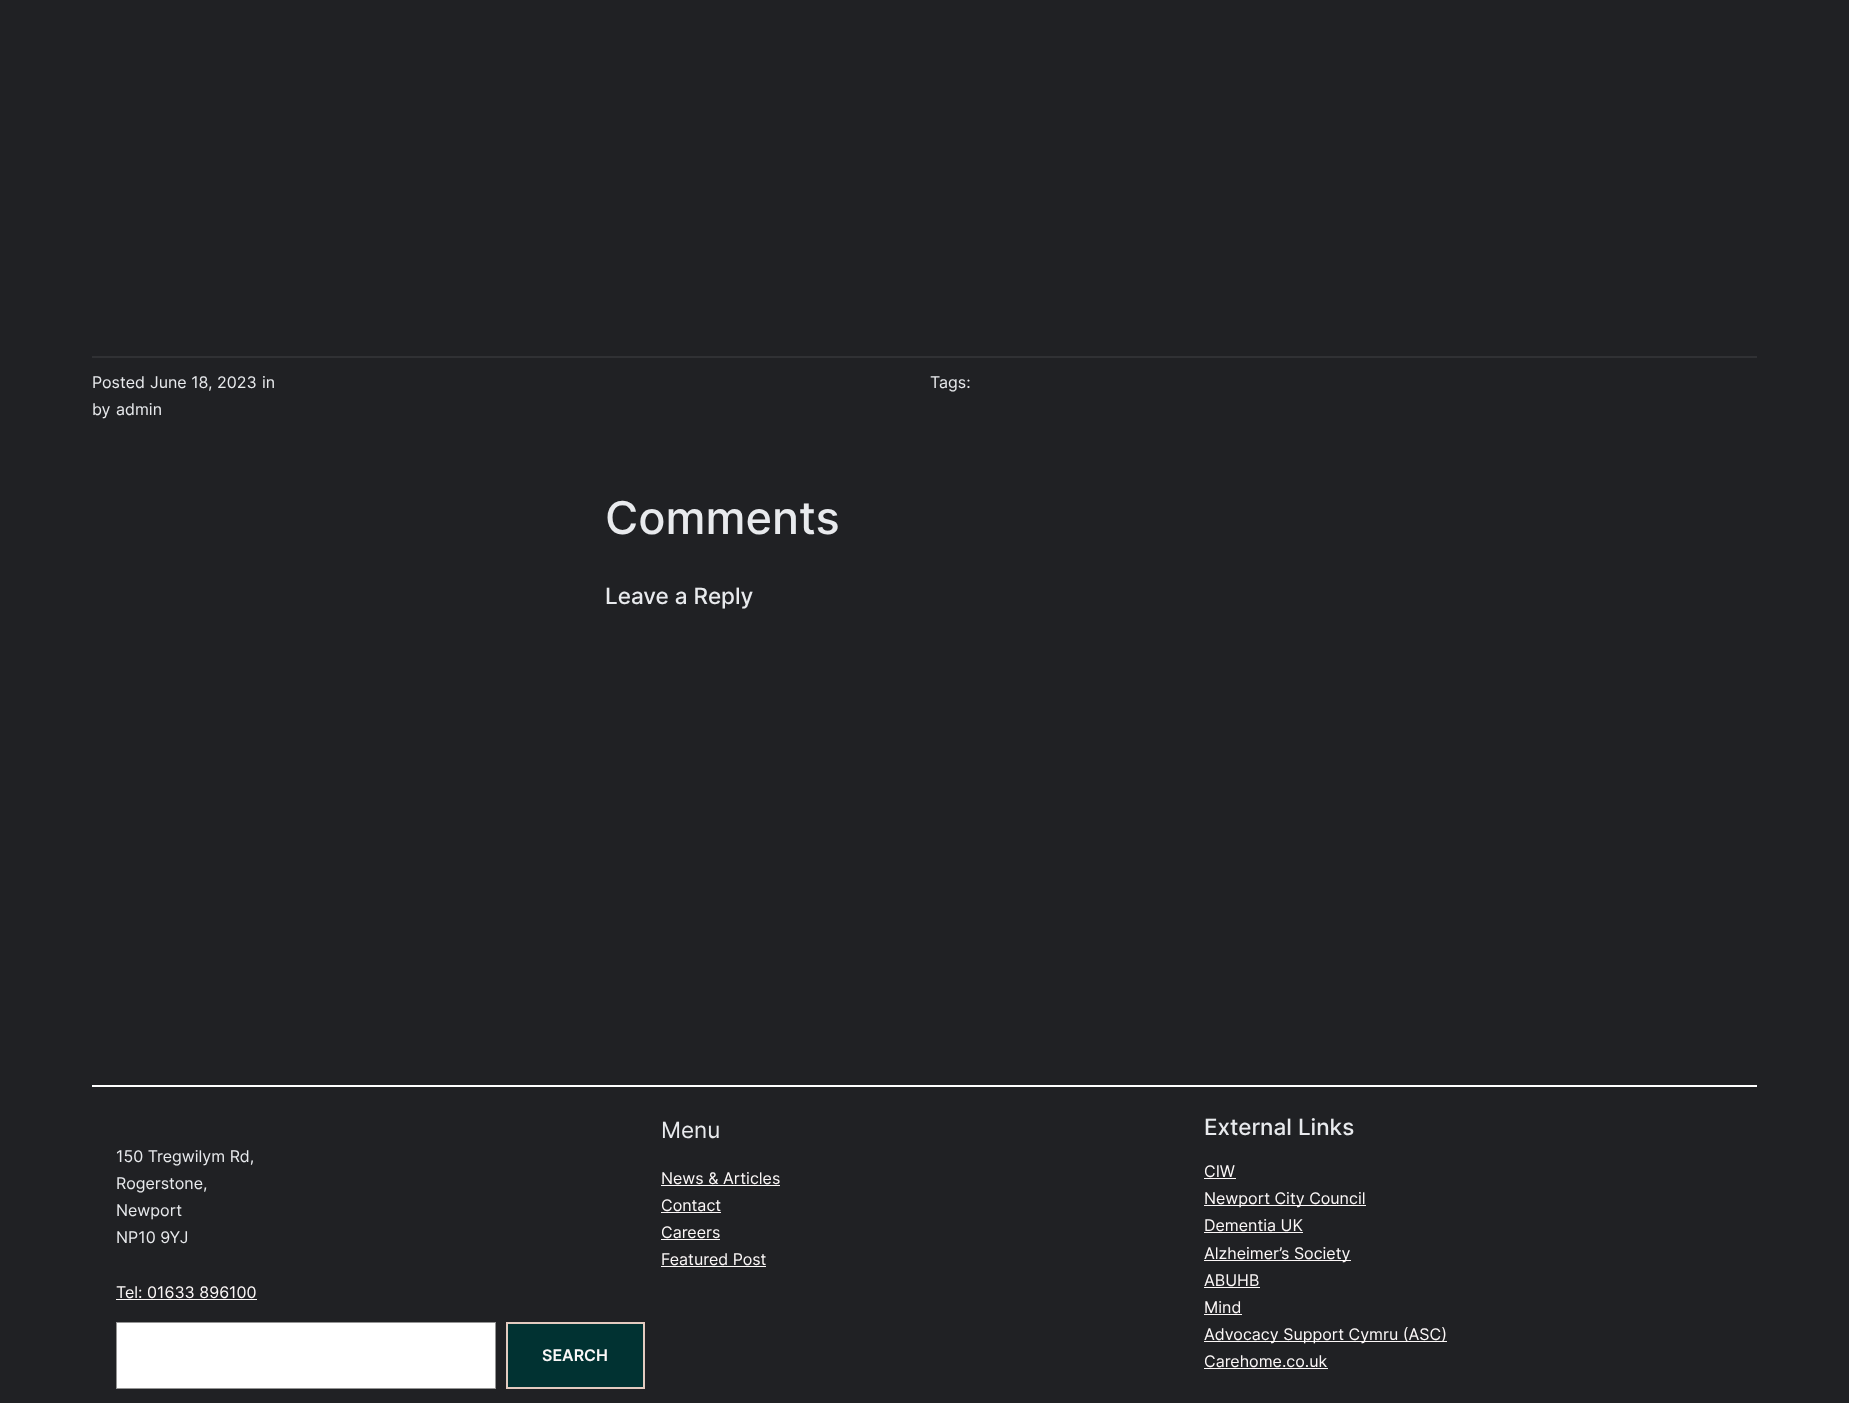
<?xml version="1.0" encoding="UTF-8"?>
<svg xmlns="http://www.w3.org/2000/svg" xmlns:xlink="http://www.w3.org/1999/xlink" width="1849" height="1403">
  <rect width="100%" height="100%" fill="#202124" />
  <rect x="92" y="356" width="1665" height="2" fill="#303134" />
  <rect x="92" y="1085" width="1665" height="2" fill="#ffffff" />
  <rect x="116" y="1299" width="141" height="1" fill="#fcf8f8" />
  <rect x="116.5" y="1322.5" width="379" height="66" fill="#ffffff" stroke="#949494" />
  <rect x="507" y="1323" width="137" height="65" fill="#013232" stroke="#e3cbc0" stroke-width="2" />
  <rect x="661" y="1185" width="119" height="1" fill="#fcf8f8" />
  <rect x="661" y="1212" width="60" height="1" fill="#fcf8f8" />
  <rect x="661" y="1239" width="59" height="1" fill="#fcf8f8" />
  <rect x="661" y="1266" width="105" height="1" fill="#fcf8f8" />
  <rect x="1204" y="1178" width="32" height="1" fill="#fcf8f8" />
  <rect x="1204" y="1205" width="162" height="1" fill="#fcf8f8" />
  <rect x="1204" y="1232" width="99" height="1" fill="#fcf8f8" />
  <rect x="1204" y="1260" width="147" height="1" fill="#fcf8f8" />
  <rect x="1204" y="1287" width="56" height="1" fill="#fcf8f8" />
  <rect x="1204" y="1314" width="38" height="1" fill="#fcf8f8" />
  <rect x="1204" y="1341" width="243" height="1" fill="#fcf8f8" />
  <rect x="1204" y="1368" width="124" height="1" fill="#fcf8f8" />
  <text x="92" y="388" style="font-family: Inter; font-size: 16px; fill: #e8eaed">Posted</text>
  <text x="150" y="388" style="font-family: Inter; font-size: 16px; fill: #e8eaed">June 18, 2023</text>
  <text x="262" y="388" style="font-family: Inter; font-size: 16px; fill: #e8eaed">in</text>
  <text x="92" y="415" style="font-family: Inter; font-size: 16px; fill: #e8eaed">by</text>
  <text x="116" y="415" style="font-family: Inter; font-size: 16px; fill: #e8eaed">admin</text>
  <text x="930" y="388" style="font-family: Inter; font-size: 16px; fill: #e8eaed">Tags:</text>
  <text x="605" y="534" style="font-family: Inter; font-size: 45.25px; font-weight: 500; fill: #e8eaed">Comments</text>
  <text x="605" y="604" style="font-family: Inter; font-size: 22.5px; font-weight: 500; fill: #e8eaed">Leave a Reply</text>
  <text x="116" y="1162" style="font-family: Inter; font-size: 16px; fill: #e8eaed">150 Tregwilym Rd,</text>
  <text x="116" y="1189" style="font-family: Inter; font-size: 16px; fill: #e8eaed">Rogerstone,</text>
  <text x="116" y="1216" style="font-family: Inter; font-size: 16px; fill: #e8eaed">Newport</text>
  <text x="116" y="1243" style="font-family: Inter; font-size: 16px; fill: #e8eaed">NP10 9YJ</text>
  <text x="116" y="1298" style="font-family: Inter; font-size: 16px; fill: #fcf8f8">Tel: 01633 896100</text>
  <text x="542" y="1361" style="font-family: Inter; font-size: 16px; font-weight: 600; fill: #fcf8f8">SEARCH</text>
  <text x="661" y="1138" style="font-family: Inter; font-size: 22.5px; fill: #e8eaed">Menu</text>
  <text x="661" y="1184" style="font-family: Inter; font-size: 16px; fill: #fcf8f8">News &amp; Articles</text>
  <text x="661" y="1211" style="font-family: Inter; font-size: 16px; fill: #fcf8f8">Contact</text>
  <text x="661" y="1238" style="font-family: Inter; font-size: 16px; fill: #fcf8f8">Careers</text>
  <text x="661" y="1265" style="font-family: Inter; font-size: 16px; fill: #fcf8f8">Featured Post</text>
  <text x="1204" y="1135" style="font-family: Inter; font-size: 22.5px; font-weight: 500; fill: #e8eaed">External Links</text>
  <text x="1204" y="1177" style="font-family: Inter; font-size: 16px; fill: #fcf8f8">CIW</text>
  <text x="1204" y="1204" style="font-family: Inter; font-size: 16px; fill: #fcf8f8">Newport City Council</text>
  <text x="1204" y="1231" style="font-family: Inter; font-size: 16px; fill: #fcf8f8">Dementia UK</text>
  <text x="1204" y="1259" style="font-family: Inter; font-size: 16px; fill: #fcf8f8">Alzheimer’s Society</text>
  <text x="1204" y="1286" style="font-family: Inter; font-size: 16px; fill: #fcf8f8">ABUHB</text>
  <text x="1204" y="1313" style="font-family: Inter; font-size: 16px; fill: #fcf8f8">Mind</text>
  <text x="1204" y="1340" style="font-family: Inter; font-size: 16px; fill: #fcf8f8">Advocacy Support Cymru (ASC)</text>
  <text x="1204" y="1367" style="font-family: Inter; font-size: 16px; fill: #fcf8f8">Carehome.co.uk</text>
</svg>
